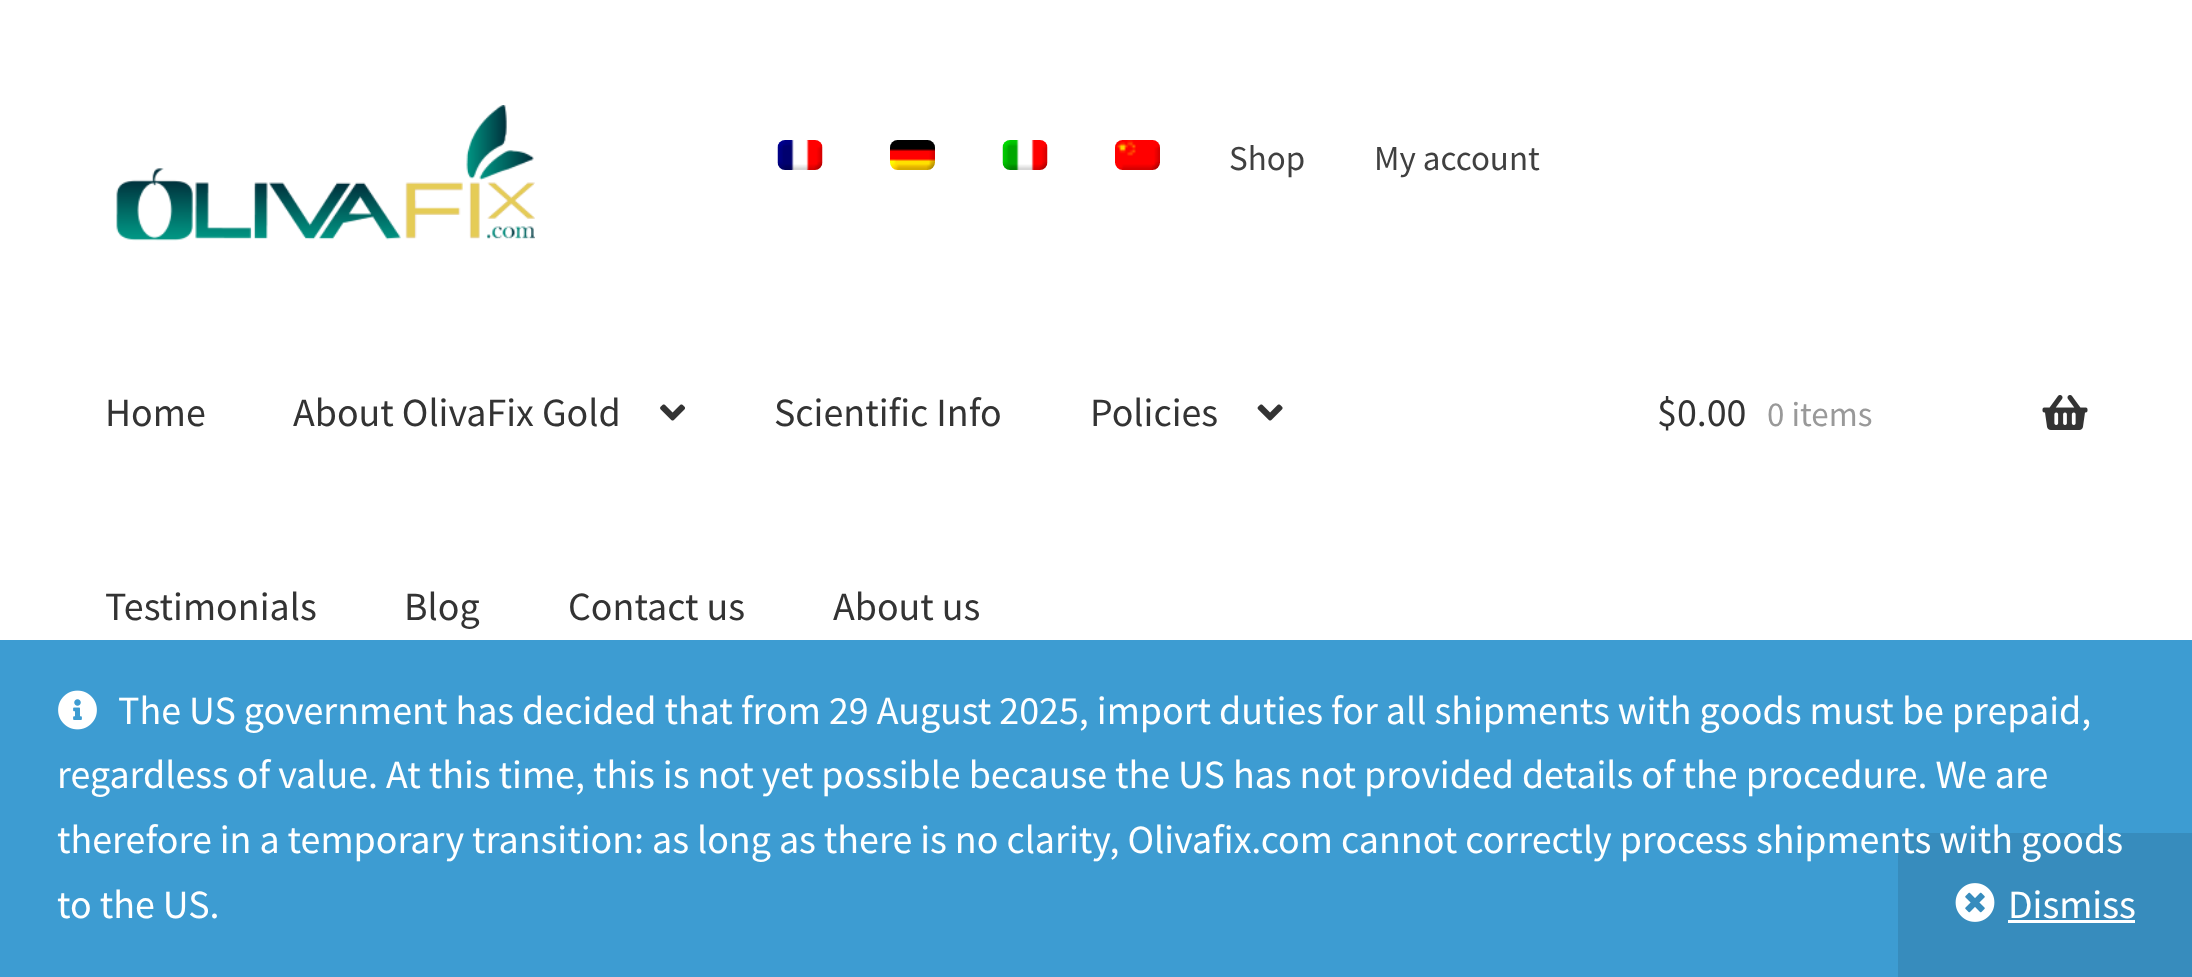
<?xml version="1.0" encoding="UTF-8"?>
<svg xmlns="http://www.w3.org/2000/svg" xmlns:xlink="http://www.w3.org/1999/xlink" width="2192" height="977">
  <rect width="100%" height="100%" fill="#ffffff" />
  <image x="116" y="105" width="419" height="136" xlink:href="image1.png" />
  <image x="777" y="140" width="46" height="30" xlink:href="image2.png" />
  <image x="890" y="140" width="45" height="30" xlink:href="image3.png" />
  <image x="1002" y="140" width="46" height="30" xlink:href="image4.png" />
  <image x="1115" y="140" width="45" height="30" xlink:href="image5.png" />
  <image x="660" y="404" width="25" height="17" xlink:href="image6.png" />
  <image x="1257" y="404" width="26" height="17" xlink:href="image7.png" />
  <image x="2042" y="395" width="46" height="35" xlink:href="image8.png" />
  <rect y="640" width="2192" height="337" fill="#3d9cd2" />
  <image x="58" y="690" width="39" height="40" xlink:href="image9.png" />
  <rect x="1898" y="833" width="294" height="144" fill="#378cbd" />
  <image x="1955" y="883" width="40" height="39" xlink:href="image10.png" />
  <rect x="2008" y="920" width="127" height="3" fill="#ffffff" />
  <text x="1229" y="170" style="font-family: Source Sans Pro; font-size: 35px; fill: #404040">Shop</text>
  <text x="1374" y="170" style="font-family: Source Sans Pro; font-size: 35px; fill: #404040">My account</text>
  <text x="105" y="426" style="font-family: Source Sans Pro; font-size: 40px; fill: #333333">Home</text>
  <text x="293" y="426" style="font-family: Source Sans Pro; font-size: 40px; fill: #333333">About OlivaFix Gold</text>
  <text x="774" y="426" style="font-family: Source Sans Pro; font-size: 40px; fill: #333333">Scientific Info</text>
  <text x="1090" y="426" style="font-family: Source Sans Pro; font-size: 40px; fill: #333333">Policies</text>
  <text x="105" y="620" style="font-family: Source Sans Pro; font-size: 40px; fill: #333333">Testimonials</text>
  <text x="404" y="620" style="font-family: Source Sans Pro; font-size: 40px; fill: #333333">Blog</text>
  <text x="568" y="620" style="font-family: Source Sans Pro; font-size: 40px; fill: #333333">Contact us</text>
  <text x="833" y="620" style="font-family: Source Sans Pro; font-size: 40px; fill: #333333">About us</text>
  <text x="1657" y="426" style="font-family: Source Sans Pro; font-size: 40px; fill: #333333">$0.00</text>
  <text x="1767" y="426" style="font-family: Source Sans Pro; font-size: 35px; fill: #999999">0 items</text>
  <text x="118" y="724" style="font-family: Source Sans Pro; font-size: 40px; fill: #ffffff">The US government has decided that from 29 August 2025, import duties for all shipments with goods must be prepaid,</text>
  <text x="57" y="788" style="font-family: Source Sans Pro; font-size: 40px; fill: #ffffff">regardless of value. At this time, this is not yet possible because the US has not provided details of the procedure. We are</text>
  <text x="57" y="853" style="font-family: Source Sans Pro; font-size: 40px; fill: #ffffff">therefore in a temporary transition: as long as there is no clarity, Olivafix.com cannot correctly process shipments with goods</text>
  <text x="57" y="918" style="font-family: Source Sans Pro; font-size: 40px; fill: #ffffff">to the US.</text>
  <text x="2008" y="918" style="font-family: Source Sans Pro; font-size: 40px; fill: #ffffff">Dismiss</text>
</svg>
